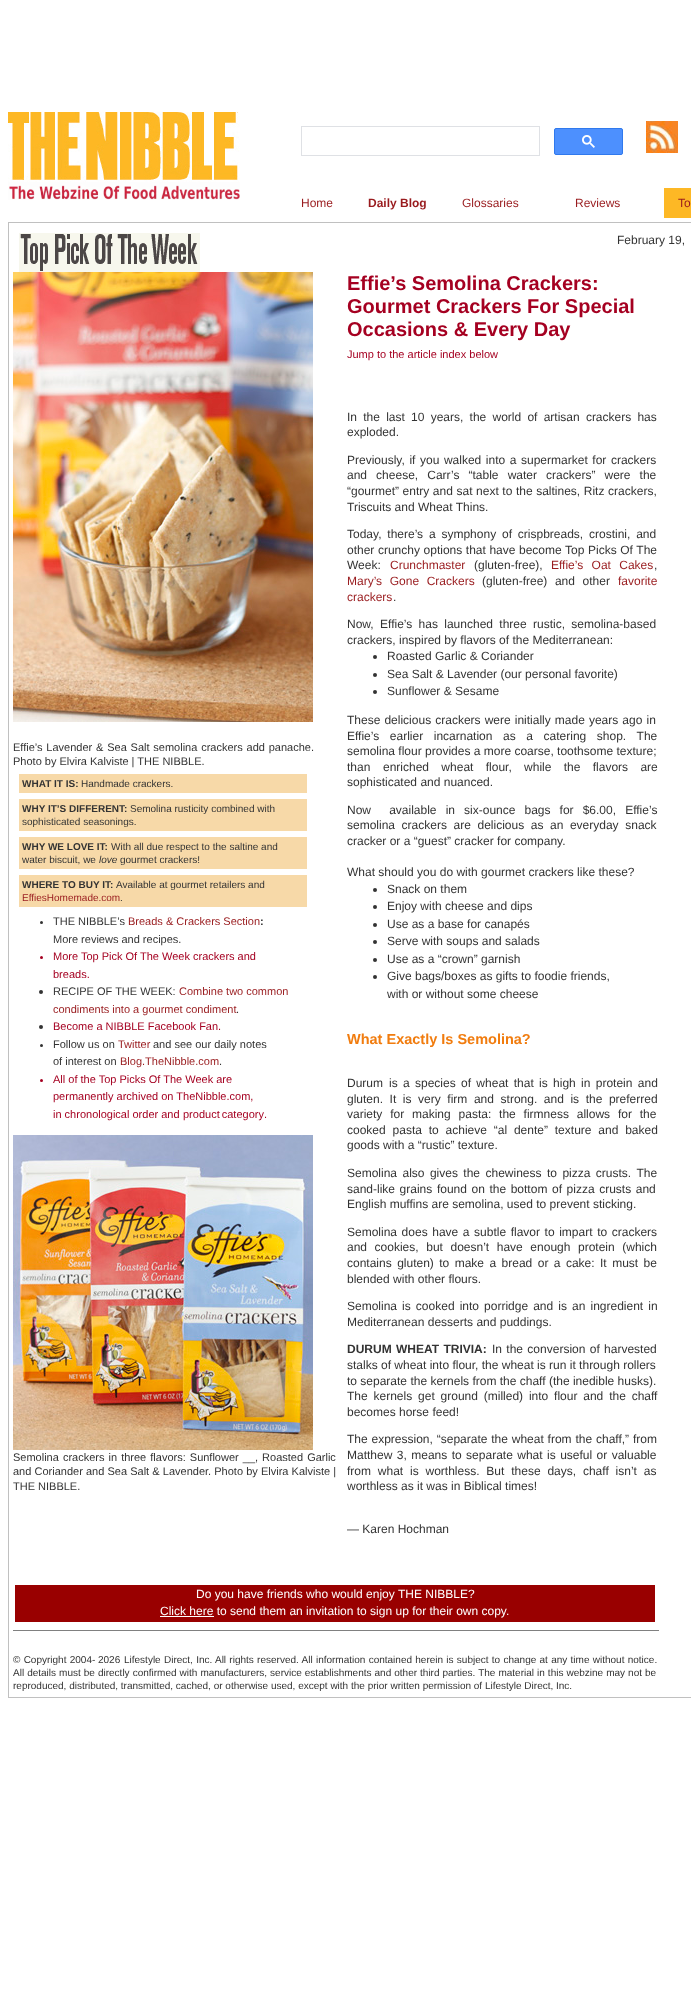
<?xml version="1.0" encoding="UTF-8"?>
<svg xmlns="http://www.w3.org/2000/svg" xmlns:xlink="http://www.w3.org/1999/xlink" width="691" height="2004">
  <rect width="100%" height="100%" fill="#ffffff" />
  <image x="8" y="112" width="232" height="88" xlink:href="image1.png" />
  <rect x="301.5" y="126.5" width="238" height="29" fill="none" stroke="#dfe1e5" />
  <rect x="554.5" y="128.5" width="68" height="26" rx="1.5" fill="#4d90fe" stroke="#3079ed" />
  <image x="582" y="135" width="13" height="13" xlink:href="image2.png" />
  <image x="646" y="121" width="32" height="32" xlink:href="image3.png" />
  <rect x="664" y="188" width="27" height="30" fill="#fdb825" />
  <rect x="8.5" y="222.5" width="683" height="1475" fill="none" stroke="#c0c0c0" />
  <image x="19" y="233" width="181" height="39" xlink:href="image4.png" />
  <image x="13" y="272" width="300" height="450" xlink:href="image5.png" />
  <rect x="19" y="774" width="288" height="19" fill="#f7d9a8" />
  <rect x="19" y="799" width="288" height="32" fill="#f7d9a8" />
  <rect x="19" y="837" width="288" height="32" fill="#f7d9a8" />
  <rect x="19" y="875" width="288" height="32" fill="#f7d9a8" />
  <circle cx="41.5" cy="922.5" r="1.5" fill="#333333" />
  <circle cx="41.5" cy="957.5" r="1.5" fill="#a50021" />
  <circle cx="41" cy="992" r="2" fill="#333333" />
  <circle cx="41" cy="1027" r="2" fill="#333333" />
  <circle cx="41.5" cy="1045.5" r="1.5" fill="#333333" />
  <circle cx="41.5" cy="1080.5" r="1.5" fill="#a50021" />
  <image x="13" y="1135" width="300" height="315" xlink:href="image6.png" />
  <circle cx="375" cy="657" r="2" fill="#333333" />
  <circle cx="375" cy="675" r="2" fill="#333333" />
  <circle cx="375" cy="692" r="2" fill="#333333" />
  <circle cx="375" cy="890" r="2" fill="#333333" />
  <circle cx="375" cy="907" r="2" fill="#333333" />
  <circle cx="375" cy="925" r="2" fill="#333333" />
  <circle cx="375" cy="942" r="2" fill="#333333" />
  <circle cx="375" cy="960" r="2" fill="#333333" />
  <circle cx="375" cy="977" r="2" fill="#333333" />
  <rect x="15" y="1585" width="640" height="37" fill="#990000" />
  <rect x="160" y="1616" width="54" height="1" fill="#ffffff" />
  <rect x="13" y="1630" width="646" height="1" fill="#808080" />
  <text x="301" y="207" style="font-family: Liberation Sans; font-size: 12px; fill: #991b1e">Home</text>
  <text x="368" y="207" style="font-family: Liberation Sans; font-size: 12px; font-weight: bold; fill: #991b1e">Daily Blog</text>
  <text x="462" y="207" style="font-family: Liberation Sans; font-size: 12px; fill: #991b1e">Glossaries</text>
  <text x="575" y="207" style="font-family: Liberation Sans; font-size: 12px; fill: #991b1e">Reviews</text>
  <text x="678" y="207" style="font-family: Liberation Sans; font-size: 12px; fill: #991b1e">To</text>
  <text x="617" y="244" style="font-family: Liberation Sans; font-size: 12px; fill: #333333">February 19,</text>
  <text x="13" y="751" word-spacing="0.75" style="font-family: Liberation Sans; font-size: 11px; fill: #333333">Effie’s Lavender &amp; Sea Salt semolina crackers add panache.</text>
  <text x="13" y="765" style="font-family: Liberation Sans; font-size: 11px; fill: #333333">Photo by Elvira Kalviste | THE NIBBLE.</text>
  <text x="22" y="787" style="font-family: Liberation Sans; font-size: 10px; font-weight: bold; fill: #333333">WHAT IT IS:</text>
  <text x="81" y="787" style="font-family: Liberation Sans; font-size: 10px; fill: #333333">Handmade crackers.</text>
  <text x="22" y="812" style="font-family: Liberation Sans; font-size: 10px; font-weight: bold; fill: #333333">WHY IT’S DIFFERENT:</text>
  <text x="130" y="812" style="font-family: Liberation Sans; font-size: 10px; fill: #333333">Semolina rusticity combined with</text>
  <text x="22" y="825" style="font-family: Liberation Sans; font-size: 10px; fill: #333333">sophisticated seasonings.</text>
  <text x="22" y="850" style="font-family: Liberation Sans; font-size: 10px; font-weight: bold; fill: #333333">WHY WE LOVE IT:</text>
  <text x="111" y="850" style="font-family: Liberation Sans; font-size: 10px; fill: #333333">With all due respect to the saltine and</text>
  <text x="22" y="863" style="font-family: Liberation Sans; font-size: 10px; fill: #333333">water biscuit, we</text>
  <text x="99" y="863" style="font-family: Liberation Sans; font-size: 10px; font-style: italic; fill: #333333">love</text>
  <text x="120" y="863" style="font-family: Liberation Sans; font-size: 10px; fill: #333333">gourmet crackers!</text>
  <text x="22" y="888" style="font-family: Liberation Sans; font-size: 10px; font-weight: bold; fill: #333333">WHERE TO BUY IT:</text>
  <text x="116" y="888" style="font-family: Liberation Sans; font-size: 10px; fill: #333333">Available at gourmet retailers and</text>
  <text x="22" y="901" style="font-family: Liberation Sans; font-size: 10px; fill: #991b1e">EffiesHomemade.com</text>
  <text x="120" y="901" style="font-family: Liberation Sans; font-size: 10px; fill: #333333">.</text>
  <text x="53" y="925" style="font-family: Liberation Sans; font-size: 11px; fill: #333333">THE NIBBLE’s</text>
  <text x="128" y="925" style="font-family: Liberation Sans; font-size: 11px; fill: #991b1e">Breads &amp; Crackers Section</text>
  <text x="260" y="925" style="font-family: Liberation Sans; font-size: 11px; font-weight: bold; fill: #333333">:</text>
  <text x="53" y="943" style="font-family: Liberation Sans; font-size: 11px; fill: #333333">More reviews and recipes.</text>
  <text x="53" y="960" style="font-family: Liberation Sans; font-size: 11px; fill: #a50021">More Top Pick Of The Week crackers and</text>
  <text x="53" y="978" style="font-family: Liberation Sans; font-size: 11px; fill: #a50021">breads.</text>
  <text x="53" y="995" style="font-family: Liberation Sans; font-size: 11px; fill: #333333">RECIPE OF THE WEEK:</text>
  <text x="179" y="995" style="font-family: Liberation Sans; font-size: 11px; fill: #991b1e">Combine two common</text>
  <text x="53" y="1013" style="font-family: Liberation Sans; font-size: 11px; fill: #991b1e">condiments into a gourmet condiment</text>
  <text x="236" y="1013" style="font-family: Liberation Sans; font-size: 11px; fill: #333333">.</text>
  <text x="53" y="1030" style="font-family: Liberation Sans; font-size: 11px; fill: #a50021">Become a NIBBLE Facebook Fan.</text>
  <text x="53" y="1048" style="font-family: Liberation Sans; font-size: 11px; fill: #333333">Follow us on</text>
  <text x="118" y="1048" style="font-family: Liberation Sans; font-size: 11px; fill: #991b1e">Twitter</text>
  <text x="153" y="1048" style="font-family: Liberation Sans; font-size: 11px; fill: #333333">and see our daily notes</text>
  <text x="53" y="1065" style="font-family: Liberation Sans; font-size: 11px; fill: #333333">of interest on</text>
  <text x="120" y="1065" style="font-family: Liberation Sans; font-size: 11px; fill: #991b1e">Blog.TheNibble.com</text>
  <text x="219" y="1065" style="font-family: Liberation Sans; font-size: 11px; fill: #333333">.</text>
  <text x="53" y="1083" style="font-family: Liberation Sans; font-size: 11px; fill: #a50021">All of the Top Picks Of The Week are</text>
  <text x="53" y="1100" style="font-family: Liberation Sans; font-size: 11px; fill: #a50021">permanently archived on TheNibble.com,</text>
  <text x="53" y="1118" style="font-family: Liberation Sans; font-size: 11px; fill: #a50021">in chronological order and</text>
  <text x="183" y="1118" word-spacing="-1" style="font-family: Liberation Sans; font-size: 11px; fill: #a50021">product category</text>
  <text x="264" y="1118" style="font-family: Liberation Sans; font-size: 11px; fill: #a50021">.</text>
  <text x="13" y="1461" word-spacing="1" style="font-family: Liberation Sans; font-size: 11px; fill: #333333">Semolina crackers in three flavors: Sunflower __, Roasted Garlic</text>
  <text x="13" y="1475" word-spacing="0.1" style="font-family: Liberation Sans; font-size: 11px; fill: #333333">and Coriander and Sea Salt &amp; Lavender. Photo by Elvira Kalviste |</text>
  <text x="13" y="1490" style="font-family: Liberation Sans; font-size: 11px; fill: #333333">THE NIBBLE.</text>
  <text x="347" y="290" style="font-family: Liberation Sans; font-size: 20px; font-weight: bold; fill: #a50021">Effie’s Semolina Crackers:</text>
  <text x="347" y="313" style="font-family: Liberation Sans; font-size: 20px; font-weight: bold; fill: #a50021">Gourmet Crackers For Special</text>
  <text x="347" y="336" style="font-family: Liberation Sans; font-size: 20px; font-weight: bold; fill: #a50021">Occasions &amp; Every Day</text>
  <text x="347" y="358" style="font-family: Liberation Sans; font-size: 11px; fill: #a50021">Jump to the article index below</text>
  <text x="347" y="421" word-spacing="2.9" style="font-family: Liberation Sans; font-size: 12px; fill: #333333">In the last 10 years, the world of artisan crackers has</text>
  <text x="347" y="436" style="font-family: Liberation Sans; font-size: 12px; fill: #333333">exploded.</text>
  <text x="347" y="464" word-spacing="1.25" style="font-family: Liberation Sans; font-size: 12px; fill: #333333">Previously, if you walked into a supermarket for crackers</text>
  <text x="347" y="479" word-spacing="5.75" style="font-family: Liberation Sans; font-size: 12px; fill: #333333">and cheese, Carr’s “table water crackers” were the</text>
  <text x="347" y="495" word-spacing="0.25" style="font-family: Liberation Sans; font-size: 12px; fill: #333333">“gourmet” entry and sat next to the saltines, Ritz crackers,</text>
  <text x="347" y="511" style="font-family: Liberation Sans; font-size: 12px; fill: #333333">Triscuits and Wheat Thins.</text>
  <text x="347" y="538" word-spacing="2.5" style="font-family: Liberation Sans; font-size: 12px; fill: #333333">Today, there’s a symphony of crispbreads, crostini, and</text>
  <text x="347" y="554" word-spacing="0.25" style="font-family: Liberation Sans; font-size: 12px; fill: #333333">other crunchy options that have become Top Picks Of The</text>
  <text x="347" y="569" style="font-family: Liberation Sans; font-size: 12px; fill: #333333">Week:</text>
  <text x="390" y="569" style="font-family: Liberation Sans; font-size: 12px; fill: #991b1e">Crunchmaster</text>
  <text x="474" y="569" style="font-family: Liberation Sans; font-size: 12px; fill: #333333">(gluten-free),</text>
  <text x="551" y="569" word-spacing="5" style="font-family: Liberation Sans; font-size: 12px; fill: #991b1e">Effie’s Oat Cakes</text>
  <text x="654" y="569" style="font-family: Liberation Sans; font-size: 12px; fill: #333333">,</text>
  <text x="347" y="585" word-spacing="4.25" style="font-family: Liberation Sans; font-size: 12px; fill: #991b1e">Mary’s Gone Crackers</text>
  <text x="482" y="585" word-spacing="4.25" style="font-family: Liberation Sans; font-size: 12px; fill: #333333">(gluten-free) and other</text>
  <text x="618" y="585" style="font-family: Liberation Sans; font-size: 12px; fill: #991b1e">favorite</text>
  <text x="347" y="601" style="font-family: Liberation Sans; font-size: 12px; fill: #991b1e">crackers</text>
  <text x="393" y="601" style="font-family: Liberation Sans; font-size: 12px; fill: #333333">.</text>
  <text x="347" y="628" word-spacing="3" style="font-family: Liberation Sans; font-size: 12px; fill: #333333">Now, Effie’s has launched three rustic, semolina-based</text>
  <text x="347" y="644" style="font-family: Liberation Sans; font-size: 12px; fill: #333333">crackers, inspired by flavors of the Mediterranean:</text>
  <text x="387" y="660" style="font-family: Liberation Sans; font-size: 12px; fill: #333333">Roasted Garlic &amp; Coriander</text>
  <text x="387" y="678" style="font-family: Liberation Sans; font-size: 12px; fill: #333333">Sea Salt &amp; Lavender (our personal favorite)</text>
  <text x="387" y="695" style="font-family: Liberation Sans; font-size: 12px; fill: #333333">Sunflower &amp; Sesame</text>
  <text x="347" y="724" word-spacing="0.75" style="font-family: Liberation Sans; font-size: 12px; fill: #333333">These delicious crackers were initially made years ago in</text>
  <text x="347" y="740" word-spacing="7.25" style="font-family: Liberation Sans; font-size: 12px; fill: #333333">Effie’s earlier incarnation as a catering shop. The</text>
  <text x="347" y="755" style="font-family: Liberation Sans; font-size: 12px; fill: #333333">semolina flour provides a more coarse, toothsome texture;</text>
  <text x="347" y="771" style="font-family: Liberation Sans; font-size: 12px; fill: #333333">than</text>
  <text x="383" y="771" word-spacing="9" style="font-family: Liberation Sans; font-size: 12px; fill: #333333">enriched wheat flour, while the flavors are</text>
  <text x="347" y="786" style="font-family: Liberation Sans; font-size: 12px; fill: #333333">sophisticated and nuanced.</text>
  <text x="347" y="814" word-spacing="5.75" style="font-family: Liberation Sans; font-size: 12px; fill: #333333" xml:space="preserve">Now  available in six-ounce bags for $6.00, Effie’s</text>
  <text x="347" y="829" word-spacing="3.25" style="font-family: Liberation Sans; font-size: 12px; fill: #333333">semolina crackers are delicious as an everyday snack</text>
  <text x="347" y="845" style="font-family: Liberation Sans; font-size: 12px; fill: #333333">cracker or a “guest” cracker for company.</text>
  <text x="347" y="876" style="font-family: Liberation Sans; font-size: 12px; fill: #333333">What should you do with gourmet crackers like these?</text>
  <text x="387" y="893" style="font-family: Liberation Sans; font-size: 12px; fill: #333333">Snack on them</text>
  <text x="387" y="910" style="font-family: Liberation Sans; font-size: 12px; fill: #333333">Enjoy with cheese and dips</text>
  <text x="387" y="928" style="font-family: Liberation Sans; font-size: 12px; fill: #333333">Use as a base for canapés</text>
  <text x="387" y="945" style="font-family: Liberation Sans; font-size: 12px; fill: #333333">Serve with soups and salads</text>
  <text x="387" y="963" style="font-family: Liberation Sans; font-size: 12px; fill: #333333">Use as a “crown” garnish</text>
  <text x="387" y="980" style="font-family: Liberation Sans; font-size: 12px; fill: #333333">Give bags/boxes as gifts to foodie friends,</text>
  <text x="387" y="998" style="font-family: Liberation Sans; font-size: 12px; fill: #333333">with or without some cheese</text>
  <text x="347" y="1044" style="font-family: Liberation Sans; font-size: 14.5px; font-weight: bold; fill: #f17c0e">What Exactly Is Semolina?</text>
  <text x="347" y="1087" style="font-family: Liberation Sans; font-size: 12px; fill: #333333">Durum</text>
  <text x="389" y="1087" word-spacing="2" style="font-family: Liberation Sans; font-size: 12px; fill: #333333">is a species of wheat that is high in protein and</text>
  <text x="347" y="1103" word-spacing="3.25" style="font-family: Liberation Sans; font-size: 12px; fill: #333333">gluten. It is very firm and strong. and is the preferred</text>
  <text x="347" y="1118" word-spacing="4.5" style="font-family: Liberation Sans; font-size: 12px; fill: #333333">variety for making pasta: the firmness allows for the</text>
  <text x="347" y="1134" word-spacing="3.5" style="font-family: Liberation Sans; font-size: 12px; fill: #333333">cooked pasta to achieve “al dente” texture and baked</text>
  <text x="347" y="1149" style="font-family: Liberation Sans; font-size: 12px; fill: #333333">goods with a “rustic” texture.</text>
  <text x="347" y="1177" word-spacing="2.1" style="font-family: Liberation Sans; font-size: 12px; fill: #333333">Semolina also gives the chewiness to pizza crusts. The</text>
  <text x="347" y="1193" word-spacing="1.25" style="font-family: Liberation Sans; font-size: 12px; fill: #333333">sand-like grains found on the bottom of pizza crusts and</text>
  <text x="347" y="1208" style="font-family: Liberation Sans; font-size: 12px; fill: #333333">English muffins are semolina, used to prevent sticking.</text>
  <text x="347" y="1236" word-spacing="1.25" style="font-family: Liberation Sans; font-size: 12px; fill: #333333">Semolina does have a subtle flavor to impart to crackers</text>
  <text x="347" y="1251" word-spacing="4.25" style="font-family: Liberation Sans; font-size: 12px; fill: #333333">and cookies, but doesn’t have enough protein (which</text>
  <text x="347" y="1267" word-spacing="2.1" style="font-family: Liberation Sans; font-size: 12px; fill: #333333">contains gluten) to make a bread or a cake: It must be</text>
  <text x="347" y="1283" style="font-family: Liberation Sans; font-size: 12px; fill: #333333">blended with other flours.</text>
  <text x="347" y="1310" word-spacing="1.75" style="font-family: Liberation Sans; font-size: 12px; fill: #333333">Semolina is cooked into porridge and is an ingredient in</text>
  <text x="347" y="1326" style="font-family: Liberation Sans; font-size: 12px; fill: #333333">Mediterranean desserts and puddings.</text>
  <text x="347" y="1353" word-spacing="1" style="font-family: Liberation Sans; font-size: 12px; font-weight: bold; fill: #333333">DURUM WHEAT TRIVIA:</text>
  <text x="492" y="1353" word-spacing="1" style="font-family: Liberation Sans; font-size: 12px; fill: #333333">In the conversion of harvested</text>
  <text x="347" y="1369" style="font-family: Liberation Sans; font-size: 12px; fill: #333333">stalks of wheat into flour, the wheat is run it through rollers</text>
  <text x="347" y="1385" style="font-family: Liberation Sans; font-size: 12px; fill: #333333">to separate the kernels from the chaff (the inedible husks).</text>
  <text x="347" y="1400" word-spacing="2.5" style="font-family: Liberation Sans; font-size: 12px; fill: #333333">The kernels get ground (milled) into flour and the chaff</text>
  <text x="347" y="1416" style="font-family: Liberation Sans; font-size: 12px; fill: #333333">becomes horse feed!</text>
  <text x="347" y="1443" word-spacing="0.5" style="font-family: Liberation Sans; font-size: 12px; fill: #333333">The expression, “separate the wheat from the chaff,” from</text>
  <text x="347" y="1459" word-spacing="1.1" style="font-family: Liberation Sans; font-size: 12px; fill: #333333">Matthew 3, means to separate what is useful or valuable</text>
  <text x="347" y="1475" word-spacing="3.5" style="font-family: Liberation Sans; font-size: 12px; fill: #333333">from what is worthless. But these days, chaff isn’t as</text>
  <text x="347" y="1490" style="font-family: Liberation Sans; font-size: 12px; fill: #333333">worthless as it was in Biblical times!</text>
  <text x="347" y="1533" style="font-family: Liberation Sans; font-size: 12px; fill: #333333">— Karen Hochman</text>
  <text x="196" y="1598" style="font-family: Liberation Sans; font-size: 12px; fill: #ffffff">Do you have friends who would enjoy THE NIBBLE?</text>
  <text x="160" y="1615" style="font-family: Liberation Sans; font-size: 12px; fill: #ffffff">Click here to send them an invitation to sign up for their own copy.</text>
  <text x="13" y="1663" word-spacing="0.5" style="font-family: Liberation Sans; font-size: 10px; fill: #333333">© Copyright 2004-</text>
  <text x="98" y="1663" style="font-family: Liberation Sans; font-size: 10px; fill: #333333">2026</text>
  <text x="124" y="1663" word-spacing="0.5" style="font-family: Liberation Sans; font-size: 10px; fill: #333333">Lifestyle Direct, Inc. All rights reserved. All information contained herein is subject to change at any time without notice.</text>
  <text x="13" y="1676" word-spacing="0.25" style="font-family: Liberation Sans; font-size: 10px; fill: #333333">All details must be directly confirmed with manufacturers, service establishments and other third parties. The material in this webzine may not be</text>
  <text x="13" y="1689" style="font-family: Liberation Sans; font-size: 10px; fill: #333333">reproduced, distributed, transmitted, cached, or otherwise used, except with the prior written permission of Lifestyle Direct, Inc.</text>
</svg>
